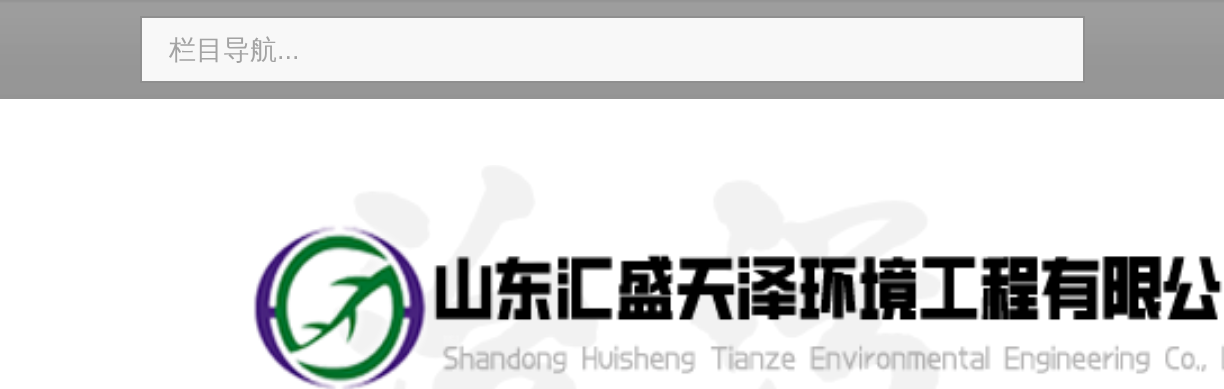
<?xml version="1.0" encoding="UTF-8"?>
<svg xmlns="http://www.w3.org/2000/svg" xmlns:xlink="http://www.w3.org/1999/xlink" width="1224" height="389">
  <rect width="100%" height="100%" fill="#ffffff" />
  <image x="0" y="0" width="1224" height="99" xlink:href="image1.png" />
  <rect x="141" y="17" width="943" height="65" fill="#f8f8f8" stroke="#8f8f8f" stroke-width="2" />
  <image x="333" y="165" width="608" height="224" xlink:href="image2.png" />
  <image x="253" y="224" width="971" height="165" xlink:href="image3.png" />
  <text x="169" y="59" style="font-family: WenQuanYi Zen Hei; font-size: 27px; font-weight: 500; fill: #a3a3a3">栏目导航</text>
  <text x="277" y="59" style="font-family: Liberation Sans; font-size: 27px; fill: #a3a3a3">...</text>
</svg>
